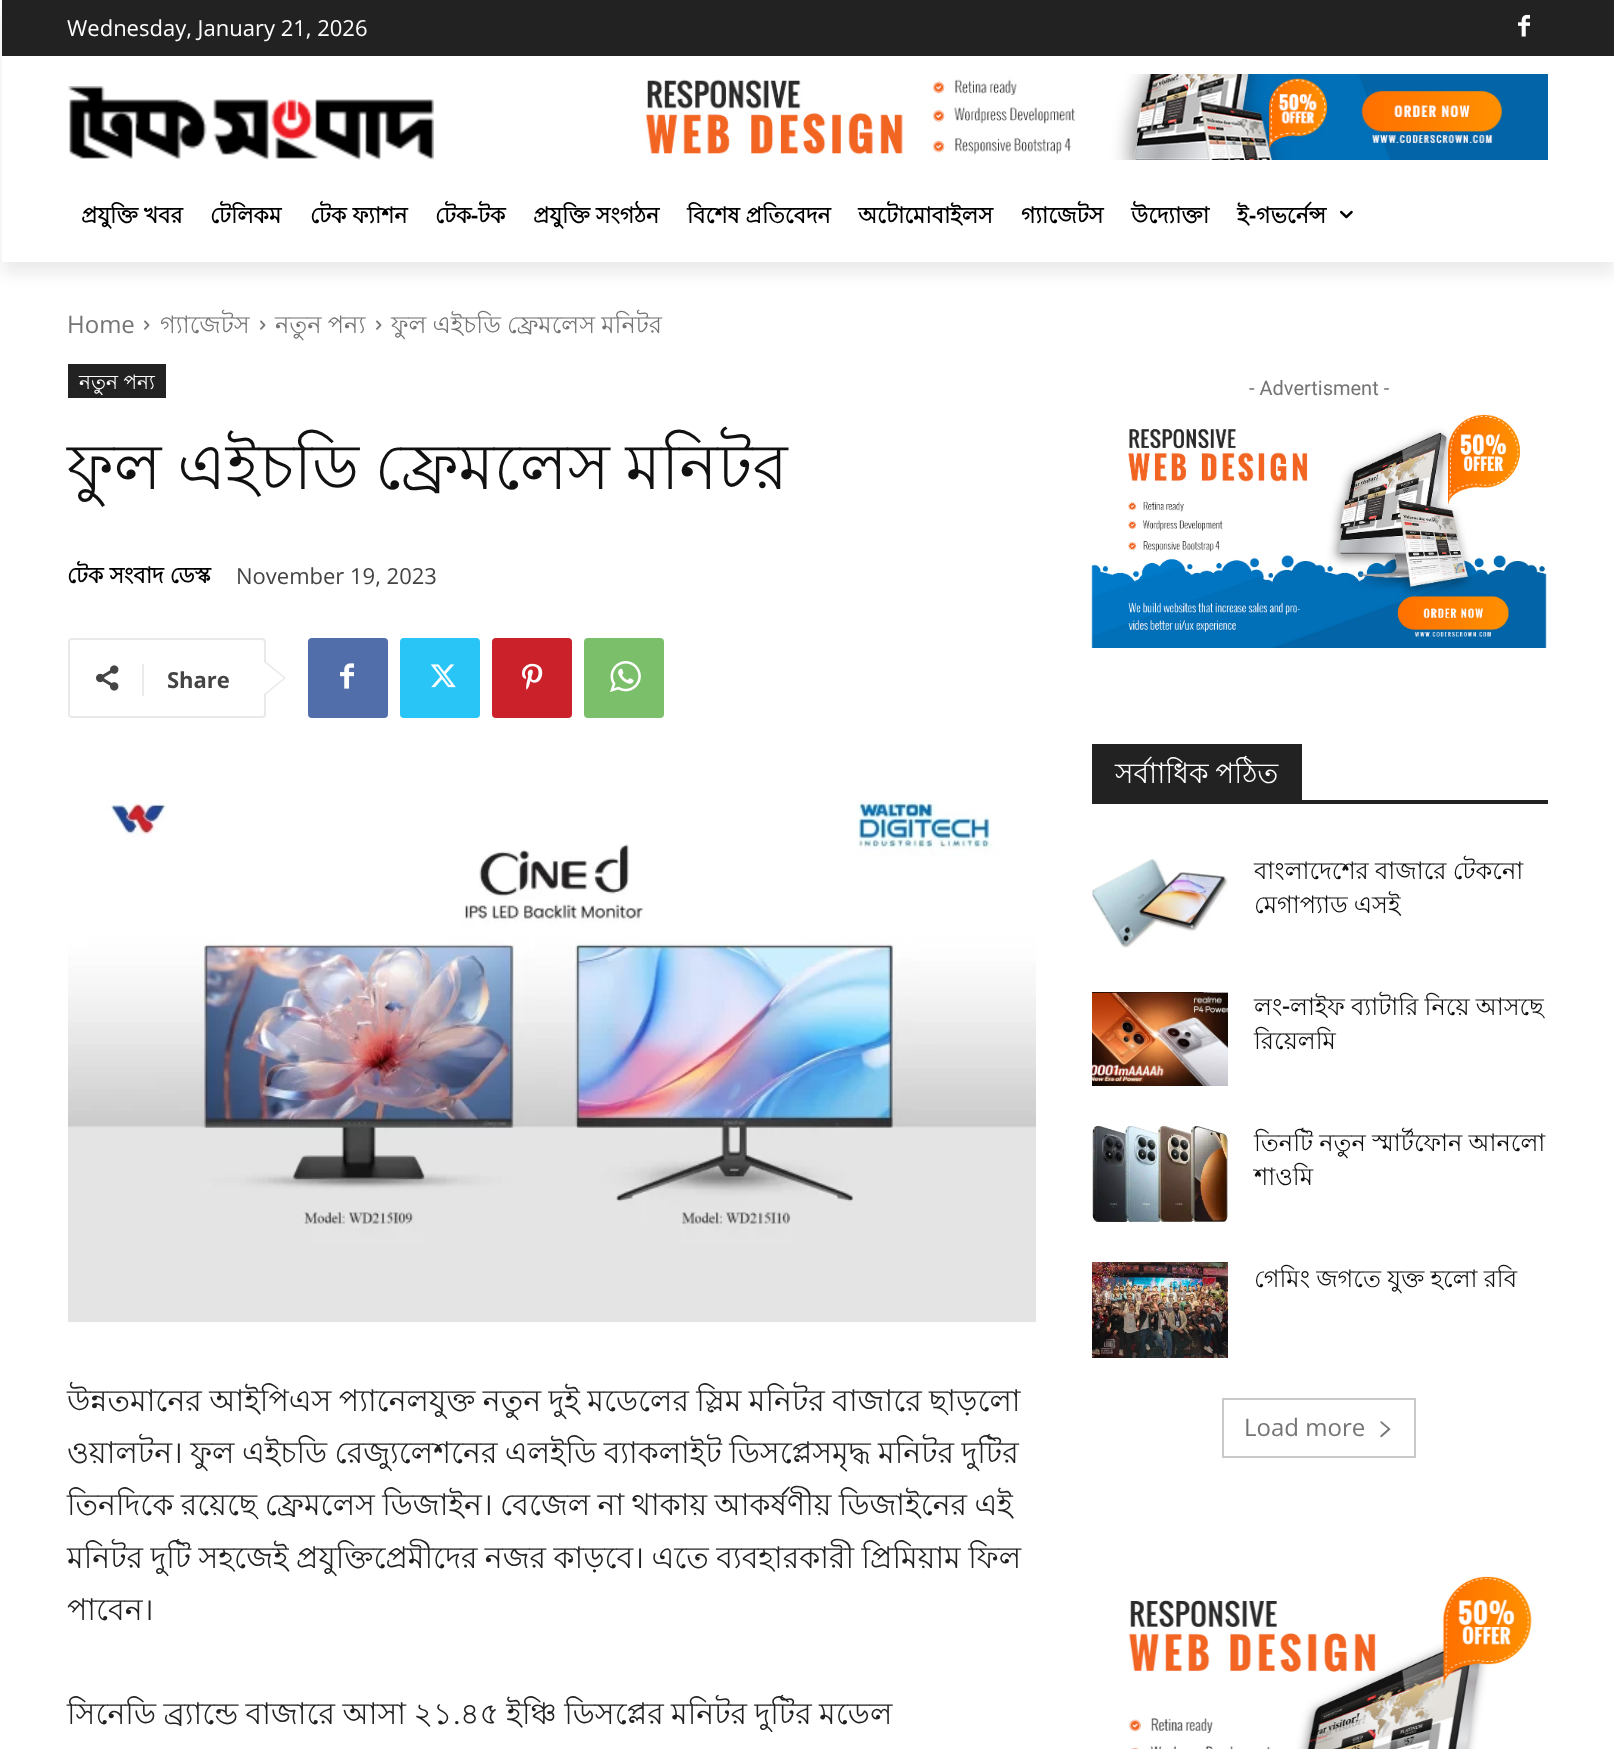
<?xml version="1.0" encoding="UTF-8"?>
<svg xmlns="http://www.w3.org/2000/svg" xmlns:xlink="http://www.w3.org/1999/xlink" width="1614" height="1749">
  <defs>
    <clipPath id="clip1"><path d="M 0 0 h 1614 v 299 h -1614 z m 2 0 h 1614 v 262 h -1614 z" clip-rule="evenodd" /></clipPath>
  </defs>
  <rect width="100%" height="100%" fill="#ffffff" />
  <rect x="2" width="1612" height="56" fill="#222222" />
  <image x="1518" y="14" width="12" height="23" xlink:href="image1.png" />
  <image x="68" y="86" width="366" height="74" xlink:href="image2.png" />
  <image x="645" y="74" width="903" height="86" xlink:href="image3.png" />
  <g clip-path="url(#clip1)">
    <rect x="2" y="12" width="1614" height="262" fill="#000000" fill-opacity="0.08" filter="blur(8px)" />
  </g>
  <image x="1340" y="210" width="13" height="9" xlink:href="image4.png" />
  <image x="144" y="320" width="6" height="10" xlink:href="image5.png" />
  <image x="260" y="320" width="6" height="10" xlink:href="image5.png" />
  <image x="376" y="320" width="6" height="10" xlink:href="image5.png" />
  <rect x="68" y="364" width="98" height="34" fill="#222222" />
  <rect x="69" y="639" width="196" height="78" rx="3" fill="none" stroke="#e9e9e9" stroke-width="2" />
  <path d="M 264 696 v -36 l 22 18 z" fill="#e9e9e9" />
  <image x="96" y="665" width="23" height="26" xlink:href="image6.png" />
  <rect x="142" y="664" width="2" height="32" fill="#ebebeb" />
  <path d="M 264 694 v -32 l 20 16 z" fill="#ffffff" />
  <rect x="308" y="638" width="80" height="80" rx="4" fill="#516eab" />
  <image x="340" y="663" width="14" height="26" xlink:href="image7.png" />
  <rect x="400" y="638" width="80" height="80" rx="4" fill="#29c5f6" />
  <image x="430" y="664" width="26" height="24" xlink:href="image8.png" />
  <rect x="492" y="638" width="80" height="80" rx="4" fill="#ca212a" />
  <image x="522" y="663" width="21" height="27" xlink:href="image9.png" />
  <rect x="584" y="638" width="80" height="80" rx="4" fill="#7bbf6a" />
  <image x="610" y="661" width="31" height="31" xlink:href="image10.png" />
  <image x="68" y="800" width="968" height="522" xlink:href="image11.png" />
  <image x="1091" y="414" width="456" height="234" xlink:href="image12.png" />
  <rect x="1092" y="800" width="456" height="4" fill="#222222" />
  <rect x="1092" y="744" width="210" height="56" fill="#222222" />
  <image x="1092" y="858" width="136" height="90" xlink:href="image13.png" />
  <image x="1092" y="992" width="136" height="94" xlink:href="image14.png" />
  <image x="1092" y="1126" width="136" height="96" xlink:href="image15.png" />
  <image x="1092" y="1262" width="136" height="96" xlink:href="image16.png" />
  <rect x="1223" y="1399" width="192" height="58" fill="none" stroke="#c9c9c9" stroke-width="2" />
  <image x="1380" y="1421" width="11" height="17" xlink:href="image17.png" />
  <image x="1128" y="1576" width="404" height="173" xlink:href="image18.png" />
  <text x="67" y="36" style="font-family: Open Sans; font-size: 22px; fill: #ffffff">Wednesday, January 21, 2026</text>
  <text x="81" y="223" style="font-family: Lohit Bengali; font-size: 22px; font-weight: bold; fill: #000000">প্রযুক্তি খবর</text>
  <text x="210" y="223" style="font-family: Lohit Bengali; font-size: 22px; font-weight: bold; fill: #000000">টেলিকম</text>
  <text x="310" y="223" style="font-family: Lohit Bengali; font-size: 22px; font-weight: bold; fill: #000000">টেক ফ্যাশন</text>
  <text x="435" y="223" style="font-family: Lohit Bengali; font-size: 22px; font-weight: bold; fill: #000000">টেক</text>
  <text x="471" y="223" style="font-family: Open Sans; font-size: 22px; font-weight: bold; fill: #000000">-</text>
  <text x="478" y="223" style="font-family: Lohit Bengali; font-size: 22px; font-weight: bold; fill: #000000">টক</text>
  <text x="533" y="223" style="font-family: Lohit Bengali; font-size: 22px; font-weight: bold; fill: #000000">প্রযুক্তি সংগঠন</text>
  <text x="687" y="223" style="font-family: Lohit Bengali; font-size: 22px; font-weight: bold; fill: #000000">বিশেষ প্রতিবেদন</text>
  <text x="858" y="223" style="font-family: Lohit Bengali; font-size: 22px; font-weight: bold; fill: #000000">অটোমোবাইলস</text>
  <text x="1021" y="223" style="font-family: Lohit Bengali; font-size: 22px; font-weight: bold; fill: #000000">গ্যাজেটস</text>
  <text x="1131" y="223" style="font-family: Lohit Bengali; font-size: 22px; font-weight: bold; fill: #000000">উদ্যোক্তা</text>
  <text x="1237" y="223" style="font-family: Lohit Bengali; font-size: 22px; font-weight: bold; fill: #000000">ই</text>
  <text x="1249" y="223" style="font-family: Open Sans; font-size: 22px; font-weight: bold; fill: #000000">-</text>
  <text x="1256" y="223" style="font-family: Lohit Bengali; font-size: 22px; font-weight: bold; fill: #000000">গভর্নেন্স</text>
  <text x="67" y="333" style="font-family: Open Sans; font-size: 24px; fill: #747474">Home</text>
  <text x="160" y="333" style="font-family: Lohit Bengali; font-size: 24px; fill: #747474">গ্যাজেটস</text>
  <text x="275" y="333" word-spacing="-0.5" style="font-family: Lohit Bengali; font-size: 24px; fill: #747474">নতুন পন্য</text>
  <text x="391" y="333" word-spacing="-0.5" style="font-family: Lohit Bengali; font-size: 24px; fill: #747474">ফুল এইচডি ফ্রেমলেস মনিটর</text>
  <text x="79" y="389" style="font-family: Lohit Bengali; font-size: 20px; fill: #ffffff">নতুন পন্য</text>
  <text x="67" y="489" word-spacing="-2" style="font-family: Lohit Bengali; font-size: 64px; fill: #111111">ফুল এইচডি ফ্রেমলেস মনিটর</text>
  <text x="67" y="583" style="font-family: Lohit Bengali; font-size: 22px; font-weight: bold; fill: #000000">টেক সংবাদ ডেস্ক</text>
  <text x="236" y="584" style="font-family: Open Sans; font-size: 22px; fill: #444444">November 19, 2023</text>
  <text x="167" y="688" style="font-family: Open Sans; font-size: 22px; font-weight: bold; fill: #444444">Share</text>
  <text x="67" y="1411" word-spacing="-0.9" style="font-family: Lohit Bengali; font-size: 30px; fill: #222222">উন্নতমানের আইপিএস প্যানেলযুক্ত নতুন দুই মডেলের স্লিম মনিটর বাজারে ছাড়লো</text>
  <text x="67" y="1463" word-spacing="-0.9" style="font-family: Lohit Bengali; font-size: 30px; fill: #222222">ওয়ালটন। ফুল এইচডি রেজ্যুলেশনের এলইডি ব্যাকলাইট ডিসপ্লেসমৃদ্ধ মনিটর দুটির</text>
  <text x="67" y="1515" word-spacing="-0.9" style="font-family: Lohit Bengali; font-size: 30px; fill: #222222">তিনদিকে রয়েছে ফ্রেমলেস ডিজাইন। বেজেল না থাকায় আকর্ষণীয় ডিজাইনের এই</text>
  <text x="67" y="1568" word-spacing="-0.9" style="font-family: Lohit Bengali; font-size: 30px; fill: #222222">মনিটর দুটি সহজেই প্রযুক্তিপ্রেমীদের নজর কাড়বে। এতে ব্যবহারকারী প্রিমিয়াম ফিল</text>
  <text x="67" y="1620" style="font-family: Lohit Bengali; font-size: 30px; fill: #222222">পাবেন।</text>
  <text x="67" y="1724" word-spacing="-0.9" style="font-family: Lohit Bengali; font-size: 30px; fill: #222222">সিনেডি ব্র্যান্ডে বাজারে আসা ২১</text>
  <text x="453" y="1724" style="font-family: Roboto; font-size: 30px; fill: #222222">.</text>
  <text x="460" y="1724" word-spacing="-0.9" style="font-family: Lohit Bengali; font-size: 30px; fill: #222222">৪৫ ইঞ্চি ডিসপ্লের মনিটর দুটির মডেল</text>
  <text x="1249" y="395" style="font-family: Roboto; font-size: 20px; fill: #747474">- Advertisment -</text>
  <text x="1115" y="783" word-spacing="-1" style="font-family: Lohit Bengali; font-size: 28px; fill: #ffffff">সর্বাাধিক পঠিত</text>
  <text x="1254" y="879" word-spacing="-0.5" style="font-family: Lohit Bengali; font-size: 24px; fill: #111111">বাংলাদেশের বাজারে টেকনো</text>
  <text x="1254" y="913" word-spacing="-0.5" style="font-family: Lohit Bengali; font-size: 24px; fill: #111111">মেগাপ্যাড এসই</text>
  <text x="1254" y="1015" style="font-family: Lohit Bengali; font-size: 24px; fill: #111111">লং</text>
  <text x="1282" y="1015" style="font-family: Roboto; font-size: 24px; font-weight: 500; fill: #111111">-</text>
  <text x="1290" y="1015" word-spacing="-0.5" style="font-family: Lohit Bengali; font-size: 24px; fill: #111111">লাইফ ব্যাটারি নিয়ে আসছে</text>
  <text x="1254" y="1049" style="font-family: Lohit Bengali; font-size: 24px; fill: #111111">রিয়েলমি</text>
  <text x="1254" y="1151" word-spacing="-0.5" style="font-family: Lohit Bengali; font-size: 24px; fill: #111111">তিনটি নতুন স্মার্টফোন আনলো</text>
  <text x="1254" y="1185" style="font-family: Lohit Bengali; font-size: 24px; fill: #111111">শাওমি</text>
  <text x="1254" y="1287" word-spacing="-0.5" style="font-family: Lohit Bengali; font-size: 24px; fill: #111111">গেমিং জগতে যুক্ত হলো রবি</text>
  <text x="1244" y="1436" style="font-family: Open Sans; font-size: 24px; fill: #747474">Load more</text>
</svg>
